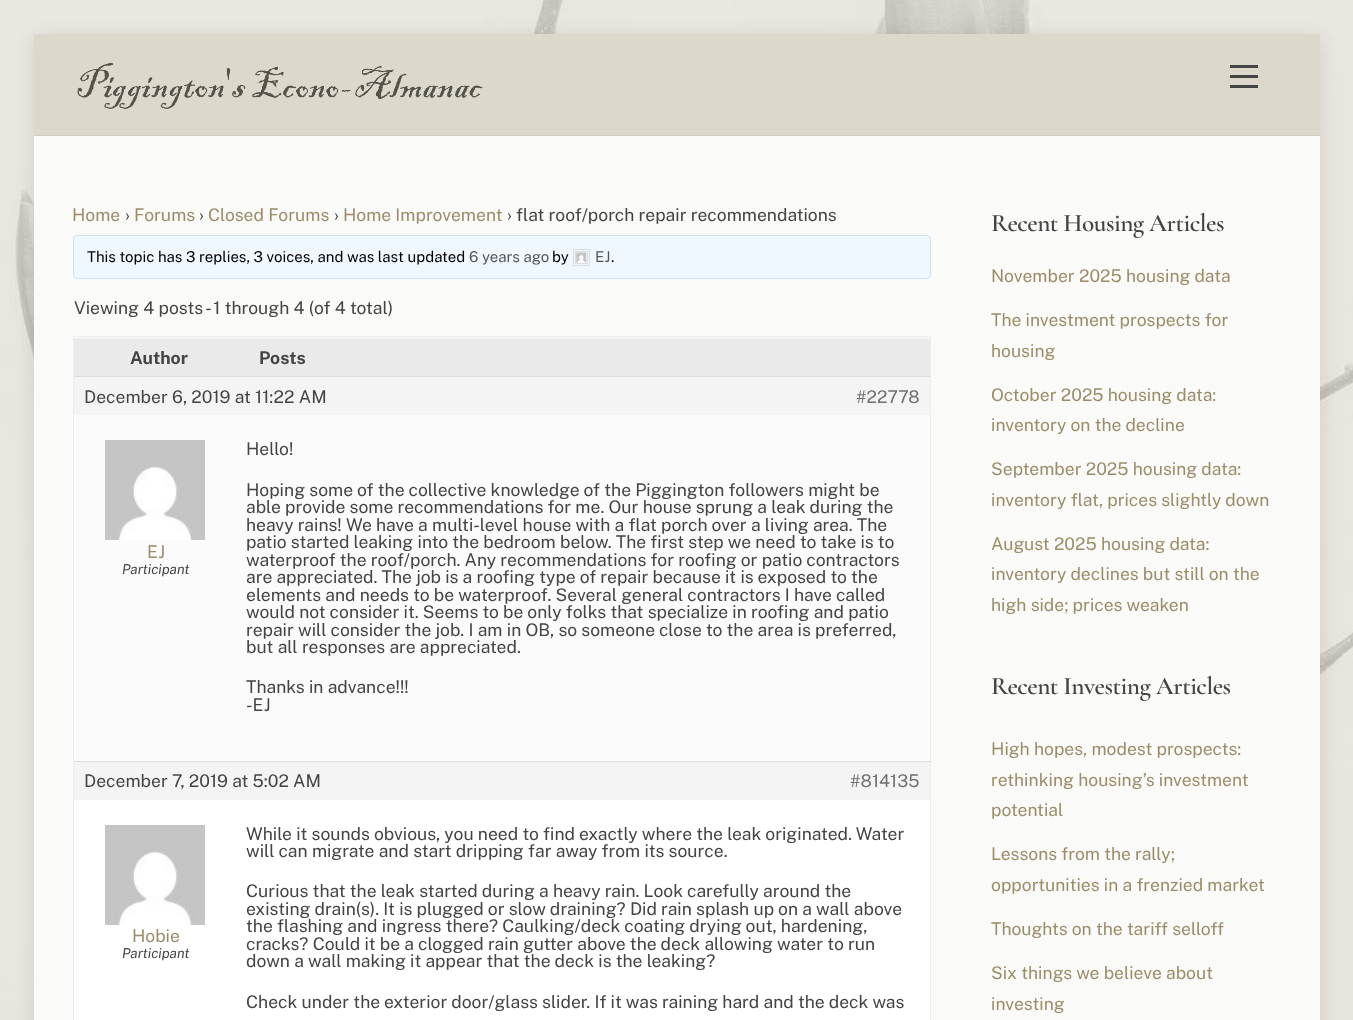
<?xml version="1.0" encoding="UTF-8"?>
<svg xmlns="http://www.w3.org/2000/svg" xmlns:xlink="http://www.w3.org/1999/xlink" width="1353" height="1020">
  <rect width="100%" height="100%" fill="#ffffff" />
  <image x="0" y="0" width="1353" height="1020" xlink:href="image1.png" />
  <rect x="34" y="38" width="1286" height="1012" fill="#000000" fill-opacity="0.1" filter="blur(10px)" />
  <rect x="34" y="34" width="1286" height="101" fill="#ddd8cc" />
  <rect x="34" y="135" width="1286" height="1" fill="#d2cdc2" />
  <image x="77" y="62" width="406" height="47" xlink:href="image2.png" />
  <rect x="1230" y="85" width="28" height="3" fill="#444444" />
  <rect x="1230" y="65" width="28" height="3" fill="#444444" />
  <rect x="1230" y="75" width="28" height="3" fill="#444444" />
  <rect x="34" y="136" width="1286" height="884" fill="#fafaf8" />
  <rect x="73.5" y="235.5" width="857" height="43" rx="3.5" fill="#f0f8ff" stroke="#cee1ef" />
  <rect x="573.5" y="249.5" width="16" height="16" fill="none" stroke="#dddddd" />
  <rect x="575.5" y="251.5" width="12" height="12" fill="none" stroke="#dddddd" />
  <image x="576" y="252" width="11" height="11" xlink:href="image3.png" />
  <rect x="73.5" y="336.5" width="857" height="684" fill="none" stroke="#eeeeee" />
  <rect x="74" y="339" width="856" height="37" fill="#eaeaea" />
  <rect x="74" y="338" width="856" height="1" fill="#eeeeee" />
  <rect x="74" y="377" width="856" height="38" fill="#f4f4f4" />
  <rect x="74" y="376" width="856" height="1" fill="#dddddd" />
  <rect x="74" y="415" width="856" height="346" fill="#fbfbfb" />
  <image x="105" y="440" width="100" height="100" xlink:href="image4.png" />
  <rect x="74" y="762" width="856" height="38" fill="#f4f4f4" />
  <rect x="74" y="761" width="856" height="1" fill="#dddddd" />
  <rect x="74" y="800" width="856" height="220" fill="#ffffff" />
  <image x="105" y="825" width="100" height="100" xlink:href="image4.png" />
  <text x="72" y="221" style="font-family: Public Sans; font-size: 17.5px; fill: #9c8d6a">Home</text>
  <text x="125" y="221" style="font-family: Public Sans; font-size: 17.5px; fill: #444444">›</text>
  <text x="134" y="221" style="font-family: Public Sans; font-size: 17.5px; fill: #9c8d6a">Forums</text>
  <text x="199" y="221" style="font-family: Public Sans; font-size: 17.5px; fill: #444444">›</text>
  <text x="208" y="221" style="font-family: Public Sans; font-size: 17.5px; fill: #9c8d6a">Closed Forums</text>
  <text x="334" y="221" style="font-family: Public Sans; font-size: 17.5px; fill: #444444">›</text>
  <text x="343" y="221" style="font-family: Public Sans; font-size: 17.5px; fill: #9c8d6a">Home Improvement</text>
  <text x="507" y="221" style="font-family: Public Sans; font-size: 17.5px; fill: #444444">› flat roof/porch repair recommendations</text>
  <text x="87" y="262" style="font-family: Public Sans; font-size: 15px; fill: #000000">This topic has 3 replies, 3 voices, and was last updated</text>
  <text x="469" y="262" style="font-family: Public Sans; font-size: 15px; fill: #555555">6 years ago</text>
  <text x="552" y="262" style="font-family: Public Sans; font-size: 15px; fill: #000000">by</text>
  <text x="595" y="262" style="font-family: Public Sans; font-size: 15px; fill: #555555">EJ</text>
  <text x="611" y="262" style="font-family: Public Sans; font-size: 15px; fill: #000000">.</text>
  <text x="74" y="314" style="font-family: Public Sans; font-size: 17.5px; fill: #444444">Viewing 4 posts - 1 through 4 (of 4 total)</text>
  <text x="130" y="364" style="font-family: Public Sans; font-size: 17.5px; font-weight: bold; fill: #444444">Author</text>
  <text x="259" y="364" style="font-family: Public Sans; font-size: 17.5px; font-weight: bold; fill: #444444">Posts</text>
  <text x="84" y="403" style="font-family: Public Sans; font-size: 17.5px; fill: #444444">December 6, 2019 at 11:22 AM</text>
  <text x="856" y="403" style="font-family: Public Sans; font-size: 17.5px; fill: #707070">#22778</text>
  <text x="147" y="558" style="font-family: Public Sans; font-size: 17.5px; fill: #9c8d6a">EJ</text>
  <text x="122" y="574" style="font-family: Public Sans; font-size: 13.75px; font-style: italic; fill: #444444">Participant</text>
  <text x="246" y="455" style="font-family: Public Sans; font-size: 17.5px; fill: #444444">Hello!</text>
  <text x="246" y="496" style="font-family: Public Sans; font-size: 17.5px; fill: #444444">Hoping some of the collective knowledge of the Piggington followers might be</text>
  <text x="246" y="513" style="font-family: Public Sans; font-size: 17.5px; fill: #444444">able provide some recommendations for me. Our house sprung a leak during the</text>
  <text x="246" y="531" style="font-family: Public Sans; font-size: 17.5px; fill: #444444">heavy rains!</text>
  <text x="346" y="531" style="font-family: Public Sans; font-size: 17.5px; fill: #444444">We have a multi-level house with a flat porch over a living area. The</text>
  <text x="246" y="548" style="font-family: Public Sans; font-size: 17.5px; fill: #444444">patio started leaking into the bedroom below. The first step we need to take is to</text>
  <text x="246" y="566" style="font-family: Public Sans; font-size: 17.5px; fill: #444444">waterproof the roof/porch. Any recommendations for roofing or patio contractors</text>
  <text x="246" y="583" style="font-family: Public Sans; font-size: 17.5px; fill: #444444">are appreciated. The job is a roofing type of repair because it is exposed to the</text>
  <text x="246" y="601" style="font-family: Public Sans; font-size: 17.5px; fill: #444444">elements and needs to be waterproof. Several general contractors I have called</text>
  <text x="246" y="618" style="font-family: Public Sans; font-size: 17.5px; fill: #444444">would not consider it. Seems to be only folks that specialize in roofing and patio</text>
  <text x="246" y="636" style="font-family: Public Sans; font-size: 17.5px; fill: #444444">repair will consider the job. I am in OB, so someone close to the area is preferred,</text>
  <text x="246" y="653" style="font-family: Public Sans; font-size: 17.5px; fill: #444444">but all responses are appreciated.</text>
  <text x="246" y="693" style="font-family: Public Sans; font-size: 17.5px; fill: #444444">Thanks in advance!!!</text>
  <text x="246" y="711" style="font-family: Public Sans; font-size: 17.5px; fill: #444444">-EJ</text>
  <text x="84" y="787" style="font-family: Public Sans; font-size: 17.5px; fill: #444444">December 7, 2019 at 5:02 AM</text>
  <text x="850" y="787" style="font-family: Public Sans; font-size: 17.5px; fill: #707070">#814135</text>
  <text x="132" y="942" style="font-family: Public Sans; font-size: 17.5px; fill: #9c8d6a">Hobie</text>
  <text x="122" y="958" style="font-family: Public Sans; font-size: 13.75px; font-style: italic; fill: #444444">Participant</text>
  <text x="246" y="840" style="font-family: Public Sans; font-size: 17.5px; fill: #444444">While it sounds obvious, you need to find exactly where the leak originated. Water</text>
  <text x="246" y="857" style="font-family: Public Sans; font-size: 17.5px; fill: #444444">will can migrate and start dripping far away from its source.</text>
  <text x="246" y="897" style="font-family: Public Sans; font-size: 17.5px; fill: #444444">Curious that the leak started during a heavy rain. Look carefully around the</text>
  <text x="246" y="915" style="font-family: Public Sans; font-size: 17.5px; fill: #444444">existing drain(s). It is plugged or slow draining? Did rain splash up on a wall above</text>
  <text x="246" y="932" style="font-family: Public Sans; font-size: 17.5px; fill: #444444">the flashing and ingress there? Caulking/deck coating drying out, hardening,</text>
  <text x="246" y="950" style="font-family: Public Sans; font-size: 17.5px; fill: #444444">cracks? Could it be a clogged rain gutter above the deck allowing water to run</text>
  <text x="246" y="967" style="font-family: Public Sans; font-size: 17.5px; fill: #444444">down a wall making it appear that the deck is the leaking?</text>
  <text x="246" y="1008" style="font-family: Public Sans; font-size: 17.5px; fill: #444444">Check under the exterior door/glass slider. If it was raining hard and the deck was</text>
  <text x="991" y="231" style="font-family: Cormorant Garamond; font-size: 25.25px; font-weight: 600; letter-spacing: -0.5px; fill: #444444">Recent Housing Articles</text>
  <text x="991" y="282" style="font-family: Public Sans; font-size: 17.5px; fill: #9c8d6a">November 2025 housing data</text>
  <text x="991" y="326" style="font-family: Public Sans; font-size: 17.5px; fill: #9c8d6a">The investment prospects for</text>
  <text x="991" y="357" style="font-family: Public Sans; font-size: 17.5px; fill: #9c8d6a">housing</text>
  <text x="991" y="401" style="font-family: Public Sans; font-size: 17.5px; fill: #9c8d6a">October 2025 housing data:</text>
  <text x="991" y="431" style="font-family: Public Sans; font-size: 17.5px; fill: #9c8d6a">inventory on the decline</text>
  <text x="991" y="475" style="font-family: Public Sans; font-size: 17.5px; fill: #9c8d6a">September 2025 housing data:</text>
  <text x="991" y="506" style="font-family: Public Sans; font-size: 17.5px; fill: #9c8d6a">inventory flat, prices slightly down</text>
  <text x="991" y="550" style="font-family: Public Sans; font-size: 17.5px; fill: #9c8d6a">August 2025 housing data:</text>
  <text x="991" y="580" style="font-family: Public Sans; font-size: 17.5px; fill: #9c8d6a">inventory declines but still on the</text>
  <text x="991" y="611" style="font-family: Public Sans; font-size: 17.5px; fill: #9c8d6a">high side; prices weaken</text>
  <text x="991" y="694" style="font-family: Cormorant Garamond; font-size: 25.25px; font-weight: 600; letter-spacing: -0.5px; fill: #444444">Recent Investing Articles</text>
  <text x="991" y="755" style="font-family: Public Sans; font-size: 17.5px; fill: #9c8d6a">High hopes, modest prospects:</text>
  <text x="991" y="786" style="font-family: Public Sans; font-size: 17.5px; fill: #9c8d6a">rethinking housing’s investment</text>
  <text x="991" y="816" style="font-family: Public Sans; font-size: 17.5px; fill: #9c8d6a">potential</text>
  <text x="991" y="860" style="font-family: Public Sans; font-size: 17.5px; fill: #9c8d6a">Lessons from the rally;</text>
  <text x="991" y="891" style="font-family: Public Sans; font-size: 17.5px; fill: #9c8d6a">opportunities in a frenzied market</text>
  <text x="991" y="935" style="font-family: Public Sans; font-size: 17.5px; fill: #9c8d6a">Thoughts on the tariff selloff</text>
  <text x="991" y="979" style="font-family: Public Sans; font-size: 17.5px; fill: #9c8d6a">Six things we believe about</text>
  <text x="991" y="1010" style="font-family: Public Sans; font-size: 17.5px; fill: #9c8d6a">investing</text>
</svg>
